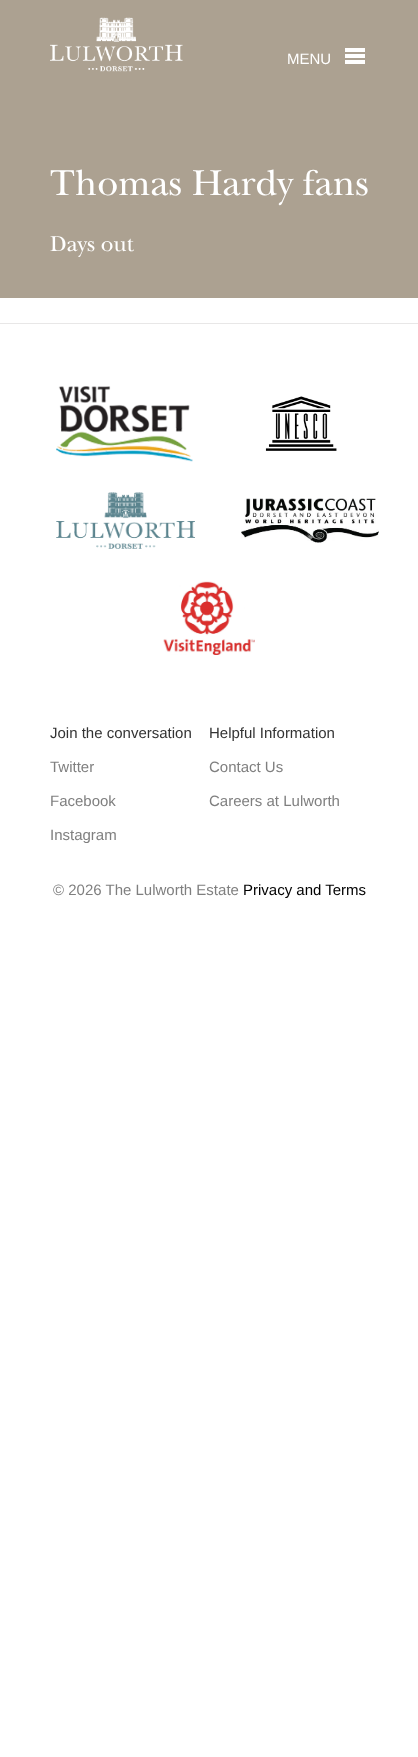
<?xml version="1.0" encoding="UTF-8"?>
<svg xmlns="http://www.w3.org/2000/svg" xmlns:xlink="http://www.w3.org/1999/xlink" width="418" height="1757">
  <rect width="100%" height="100%" fill="#ffffff" />
  <rect width="418" height="298" fill="#aca191" />
  <image x="50" y="17" width="133" height="55" xlink:href="image1.png" />
  <rect x="345" y="48" width="20" height="4" fill="#ffffff" />
  <rect x="345" y="54" width="20" height="4" fill="#ffffff" />
  <rect x="345" y="60" width="20" height="4" fill="#ffffff" />
  <rect y="323" width="418" height="1" fill="#e8e7e7" />
  <image x="56" y="386" width="137" height="76" xlink:href="image2.png" />
  <image x="265" y="396" width="72" height="55" xlink:href="image3.png" />
  <image x="56" y="492" width="139" height="57" xlink:href="image4.png" />
  <image x="241" y="498" width="138" height="45" xlink:href="image5.png" />
  <image x="163" y="581" width="92" height="74" xlink:href="image6.png" />
  <text x="287" y="64" style="font-family: Liberation Sans; font-size: 15px; fill: #ffffff">MENU</text>
  <text x="50" y="195" style="font-family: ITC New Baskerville; font-size: 37.5px; fill: #ffffff">Thomas Hardy fans</text>
  <text x="50" y="251" style="font-family: ITC New Baskerville; font-size: 22.5px; fill: #ffffff">Days out</text>
  <text x="50" y="738" style="font-family: Liberation Sans; font-size: 15px; fill: #333333">Join the conversation</text>
  <text x="50" y="772" style="font-family: Liberation Sans; font-size: 15px; fill: #7f7f7f">Twitter</text>
  <text x="50" y="806" style="font-family: Liberation Sans; font-size: 15px; fill: #7f7f7f">Facebook</text>
  <text x="50" y="840" style="font-family: Liberation Sans; font-size: 15px; fill: #7f7f7f">Instagram</text>
  <text x="209" y="738" style="font-family: Liberation Sans; font-size: 15px; fill: #333333">Helpful Information</text>
  <text x="209" y="772" style="font-family: Liberation Sans; font-size: 15px; fill: #7f7f7f">Contact Us</text>
  <text x="209" y="806" style="font-family: Liberation Sans; font-size: 15px; fill: #7f7f7f">Careers at Lulworth</text>
  <text x="53" y="895" style="font-family: Liberation Sans; font-size: 15px; fill: #7f7f7f">© 2026 The Lulworth Estate</text>
  <text x="243" y="895" style="font-family: Liberation Sans; font-size: 15px; fill: #000000">Privacy and Terms</text>
</svg>
